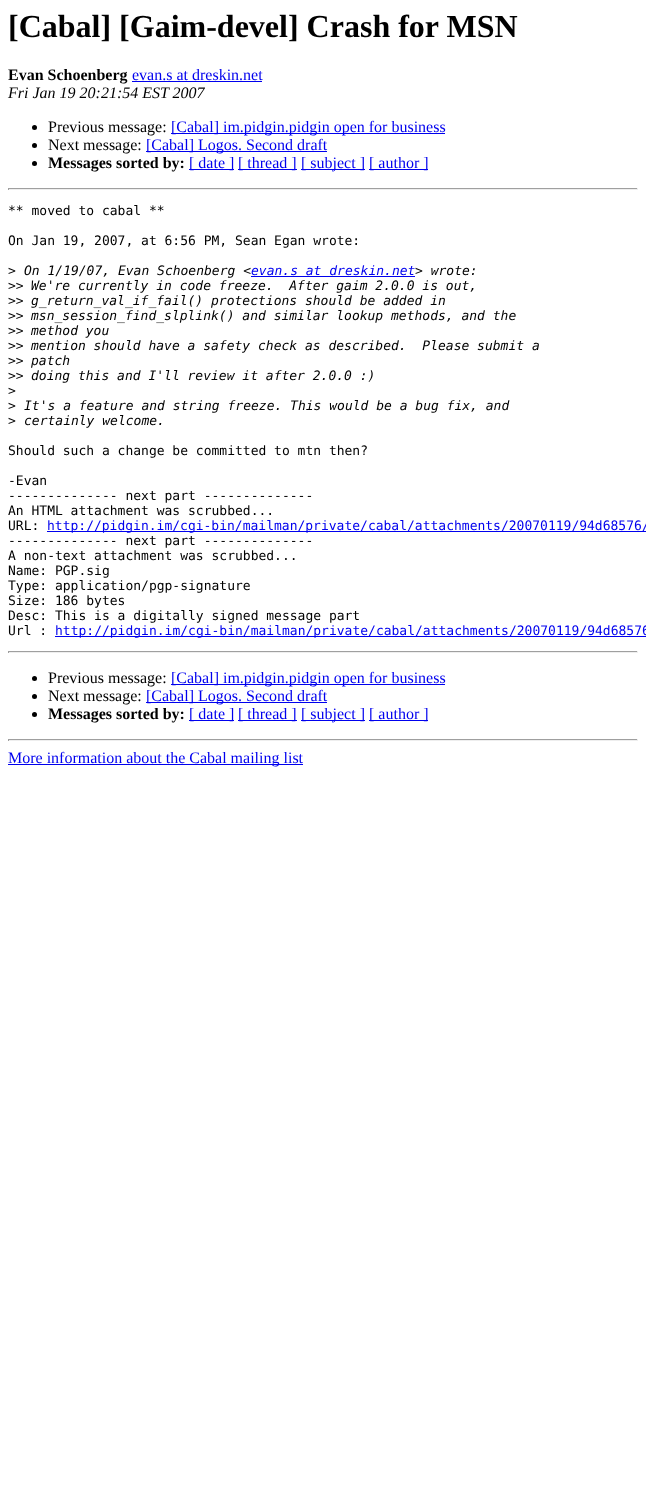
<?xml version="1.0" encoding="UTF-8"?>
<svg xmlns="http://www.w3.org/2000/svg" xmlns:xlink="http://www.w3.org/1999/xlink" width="646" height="1494">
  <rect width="100%" height="100%" fill="#ffffff" />
  <rect x="132" y="81" width="130" height="1" fill="#0000ee" />
  <circle cx="34.5" cy="127.5" r="2.5" fill="#000000" />
  <rect x="171" y="133" width="274" height="1" fill="#0000ee" />
  <circle cx="34.5" cy="145.5" r="2.5" fill="#000000" />
  <rect x="146" y="151" width="181" height="1" fill="#0000ee" />
  <circle cx="34.5" cy="163.5" r="2.5" fill="#000000" />
  <rect x="189" y="169" width="45" height="1" fill="#0000ee" />
  <rect x="238" y="169" width="59" height="1" fill="#0000ee" />
  <rect x="301" y="169" width="64" height="1" fill="#0000ee" />
  <rect x="369" y="169" width="59" height="1" fill="#0000ee" />
  <rect x="8" y="188" width="630" height="1" fill="#9f9f9f" />
  <rect x="637" y="188" width="1" height="2" fill="#eeeeee" />
  <rect x="8" y="189" width="630" height="1" fill="#eeeeee" />
  <rect x="8" y="188" width="1" height="2" fill="#9f9f9f" />
  <rect x="251" y="276" width="164" height="1" fill="#0000ee" />
  <rect x="47" y="531" width="599" height="1" fill="#0000ee" />
  <rect x="55" y="636" width="591" height="1" fill="#0000ee" />
  <rect x="8" y="651" width="630" height="1" fill="#9f9f9f" />
  <rect x="637" y="651" width="1" height="2" fill="#eeeeee" />
  <rect x="8" y="652" width="630" height="1" fill="#eeeeee" />
  <rect x="8" y="651" width="1" height="2" fill="#9f9f9f" />
  <circle cx="34.5" cy="678.5" r="2.5" fill="#000000" />
  <rect x="171" y="684" width="274" height="1" fill="#0000ee" />
  <circle cx="34.5" cy="696.5" r="2.5" fill="#000000" />
  <rect x="146" y="702" width="181" height="1" fill="#0000ee" />
  <circle cx="34.5" cy="714.5" r="2.5" fill="#000000" />
  <rect x="189" y="720" width="45" height="1" fill="#0000ee" />
  <rect x="238" y="720" width="59" height="1" fill="#0000ee" />
  <rect x="301" y="720" width="64" height="1" fill="#0000ee" />
  <rect x="369" y="720" width="59" height="1" fill="#0000ee" />
  <rect x="8" y="739" width="630" height="1" fill="#9f9f9f" />
  <rect x="637" y="739" width="1" height="2" fill="#eeeeee" />
  <rect x="8" y="740" width="630" height="1" fill="#eeeeee" />
  <rect x="8" y="739" width="1" height="2" fill="#9f9f9f" />
  <rect x="8" y="764" width="295" height="1" fill="#0000ee" />
  <text x="8" y="37" style="font-family: Liberation Serif; font-size: 32px; font-weight: bold; fill: #000000">[Cabal] [Gaim-devel] Crash for MSN</text>
  <text x="8" y="80" style="font-family: Liberation Serif; font-size: 16px; font-weight: bold; fill: #000000">Evan Schoenberg</text>
  <text x="132" y="80" style="font-family: Liberation Serif; font-size: 16px; fill: #0000ee">evan.s at dreskin.net</text>
  <text x="8" y="98" style="font-family: Liberation Serif; font-size: 16px; font-style: italic; fill: #000000">Fri Jan 19 20:21:54 EST 2007</text>
  <text x="48" y="132" style="font-family: Liberation Serif; font-size: 16px; fill: #000000">Previous message:</text>
  <text x="171" y="132" style="font-family: Liberation Serif; font-size: 16px; fill: #0000ee">[Cabal] im.pidgin.pidgin open for business</text>
  <text x="48" y="150" style="font-family: Liberation Serif; font-size: 16px; fill: #000000">Next message:</text>
  <text x="146" y="150" style="font-family: Liberation Serif; font-size: 16px; fill: #0000ee">[Cabal] Logos. Second draft</text>
  <text x="48" y="168" style="font-family: Liberation Serif; font-size: 16px; font-weight: bold; fill: #000000">Messages sorted by:</text>
  <text x="189" y="168" style="font-family: Liberation Serif; font-size: 16px; fill: #0000ee">[ date ]</text>
  <text x="238" y="168" style="font-family: Liberation Serif; font-size: 16px; fill: #0000ee">[ thread ]</text>
  <text x="301" y="168" style="font-family: Liberation Serif; font-size: 16px; fill: #0000ee">[ subject ]</text>
  <text x="369" y="168" style="font-family: Liberation Serif; font-size: 16px; fill: #0000ee">[ author ]</text>
  <text x="8" y="215" style="font-family: DejaVu Sans Mono; font-size: 13px; fill: #000000">** moved to cabal **</text>
  <text x="8" y="245" style="font-family: DejaVu Sans Mono; font-size: 13px; fill: #000000">On Jan 19, 2007, at 6:56 PM, Sean Egan wrote:</text>
  <text x="8" y="275" style="font-family: DejaVu Sans Mono; font-size: 13px; fill: #000000">&gt;</text>
  <text x="24" y="275" style="font-family: DejaVu Sans Mono; font-size: 13px; font-style: italic; fill: #000000">On 1/19/07, Evan Schoenberg &lt;</text>
  <text x="251" y="275" style="font-family: DejaVu Sans Mono; font-size: 13px; font-style: italic; fill: #0000ee">evan.s at dreskin.net</text>
  <text x="415" y="275" style="font-family: DejaVu Sans Mono; font-size: 13px; font-style: italic; fill: #000000">&gt; wrote:</text>
  <text x="8" y="290" style="font-family: DejaVu Sans Mono; font-size: 13px; fill: #000000">&gt;&gt;</text>
  <text x="31" y="290" style="font-family: DejaVu Sans Mono; font-size: 13px; font-style: italic; fill: #000000" xml:space="preserve">We're currently in code freeze.  After gaim 2.0.0 is out,</text>
  <text x="8" y="305" style="font-family: DejaVu Sans Mono; font-size: 13px; fill: #000000">&gt;&gt;</text>
  <text x="31" y="305" style="font-family: DejaVu Sans Mono; font-size: 13px; font-style: italic; fill: #000000">g_return_val_if_fail() protections should be added in</text>
  <text x="8" y="320" style="font-family: DejaVu Sans Mono; font-size: 13px; fill: #000000">&gt;&gt;</text>
  <text x="31" y="320" style="font-family: DejaVu Sans Mono; font-size: 13px; font-style: italic; fill: #000000">msn_session_find_slplink() and similar lookup methods, and the</text>
  <text x="8" y="335" style="font-family: DejaVu Sans Mono; font-size: 13px; fill: #000000">&gt;&gt;</text>
  <text x="31" y="335" style="font-family: DejaVu Sans Mono; font-size: 13px; font-style: italic; fill: #000000">method you</text>
  <text x="8" y="350" style="font-family: DejaVu Sans Mono; font-size: 13px; fill: #000000">&gt;&gt;</text>
  <text x="31" y="350" style="font-family: DejaVu Sans Mono; font-size: 13px; font-style: italic; fill: #000000" xml:space="preserve">mention should have a safety check as described.  Please submit a</text>
  <text x="8" y="365" style="font-family: DejaVu Sans Mono; font-size: 13px; fill: #000000">&gt;&gt;</text>
  <text x="31" y="365" style="font-family: DejaVu Sans Mono; font-size: 13px; font-style: italic; fill: #000000">patch</text>
  <text x="8" y="380" style="font-family: DejaVu Sans Mono; font-size: 13px; fill: #000000">&gt;&gt;</text>
  <text x="31" y="380" style="font-family: DejaVu Sans Mono; font-size: 13px; font-style: italic; fill: #000000">doing this and I'll review it after 2.0.0 :)</text>
  <text x="8" y="395" style="font-family: DejaVu Sans Mono; font-size: 13px; fill: #000000">&gt;</text>
  <text x="8" y="410" style="font-family: DejaVu Sans Mono; font-size: 13px; fill: #000000">&gt;</text>
  <text x="24" y="410" style="font-family: DejaVu Sans Mono; font-size: 13px; font-style: italic; fill: #000000">It's a feature and string freeze. This would be a bug fix, and</text>
  <text x="8" y="425" style="font-family: DejaVu Sans Mono; font-size: 13px; fill: #000000">&gt;</text>
  <text x="24" y="425" style="font-family: DejaVu Sans Mono; font-size: 13px; font-style: italic; fill: #000000">certainly welcome.</text>
  <text x="8" y="455" style="font-family: DejaVu Sans Mono; font-size: 13px; fill: #000000">Should such a change be committed to mtn then?</text>
  <text x="8" y="485" style="font-family: DejaVu Sans Mono; font-size: 13px; fill: #000000">-Evan</text>
  <text x="8" y="500" style="font-family: DejaVu Sans Mono; font-size: 13px; fill: #000000">-------------- next part --------------</text>
  <text x="8" y="515" style="font-family: DejaVu Sans Mono; font-size: 13px; fill: #000000">An HTML attachment was scrubbed...</text>
  <text x="8" y="530" style="font-family: DejaVu Sans Mono; font-size: 13px; fill: #000000">URL:</text>
  <text x="47" y="530" style="font-family: DejaVu Sans Mono; font-size: 13px; fill: #0000ee">http://pidgin.im/cgi-bin/mailman/private/cabal/attachments/20070119/94d68576/</text>
  <text x="8" y="545" style="font-family: DejaVu Sans Mono; font-size: 13px; fill: #000000">-------------- next part --------------</text>
  <text x="8" y="560" style="font-family: DejaVu Sans Mono; font-size: 13px; fill: #000000">A non-text attachment was scrubbed...</text>
  <text x="8" y="575" style="font-family: DejaVu Sans Mono; font-size: 13px; fill: #000000">Name: PGP.sig</text>
  <text x="8" y="590" style="font-family: DejaVu Sans Mono; font-size: 13px; fill: #000000">Type: application/pgp-signature</text>
  <text x="8" y="605" style="font-family: DejaVu Sans Mono; font-size: 13px; fill: #000000">Size: 186 bytes</text>
  <text x="8" y="620" style="font-family: DejaVu Sans Mono; font-size: 13px; fill: #000000">Desc: This is a digitally signed message part</text>
  <text x="8" y="635" style="font-family: DejaVu Sans Mono; font-size: 13px; fill: #000000">Url :</text>
  <text x="55" y="635" style="font-family: DejaVu Sans Mono; font-size: 13px; fill: #0000ee">http://pidgin.im/cgi-bin/mailman/private/cabal/attachments/20070119/94d68576</text>
  <text x="48" y="683" style="font-family: Liberation Serif; font-size: 16px; fill: #000000">Previous message:</text>
  <text x="171" y="683" style="font-family: Liberation Serif; font-size: 16px; fill: #0000ee">[Cabal] im.pidgin.pidgin open for business</text>
  <text x="48" y="701" style="font-family: Liberation Serif; font-size: 16px; fill: #000000">Next message:</text>
  <text x="146" y="701" style="font-family: Liberation Serif; font-size: 16px; fill: #0000ee">[Cabal] Logos. Second draft</text>
  <text x="48" y="719" style="font-family: Liberation Serif; font-size: 16px; font-weight: bold; fill: #000000">Messages sorted by:</text>
  <text x="189" y="719" style="font-family: Liberation Serif; font-size: 16px; fill: #0000ee">[ date ]</text>
  <text x="238" y="719" style="font-family: Liberation Serif; font-size: 16px; fill: #0000ee">[ thread ]</text>
  <text x="301" y="719" style="font-family: Liberation Serif; font-size: 16px; fill: #0000ee">[ subject ]</text>
  <text x="369" y="719" style="font-family: Liberation Serif; font-size: 16px; fill: #0000ee">[ author ]</text>
  <text x="8" y="763" style="font-family: Liberation Serif; font-size: 16px; fill: #0000ee">More information about the Cabal mailing list</text>
</svg>
